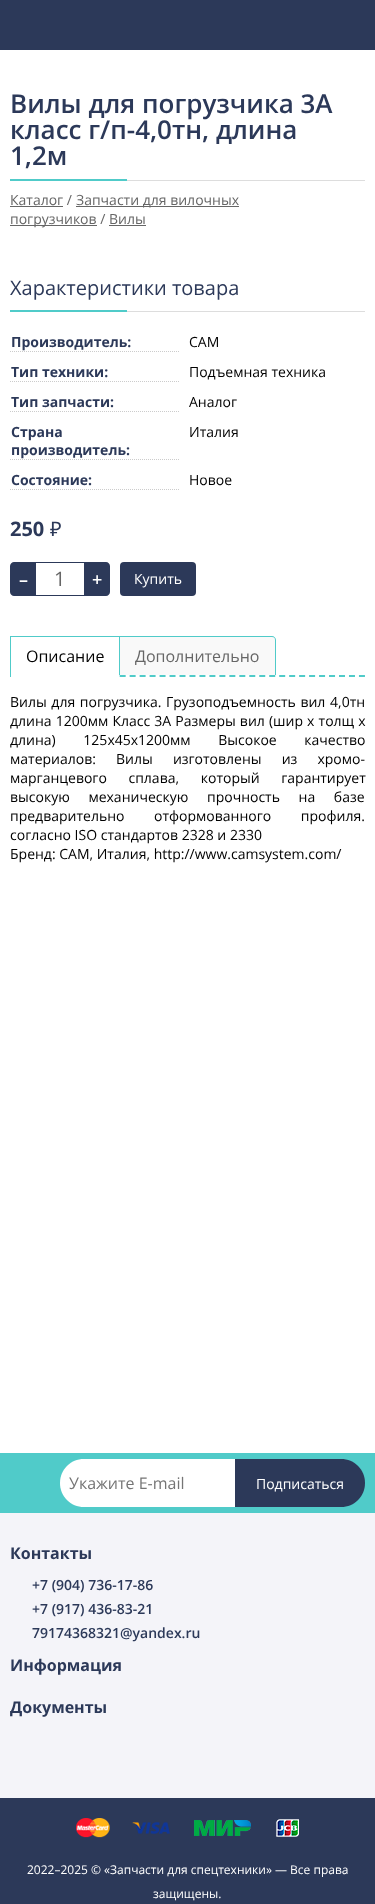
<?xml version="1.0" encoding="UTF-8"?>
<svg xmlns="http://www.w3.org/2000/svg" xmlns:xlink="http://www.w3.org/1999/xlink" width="375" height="1904">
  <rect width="100%" height="100%" fill="#ffffff" />
  <rect width="375" height="50" fill="#2c3959" />
  <rect x="127" y="180" width="238" height="1" fill="#dddddd" />
  <rect x="10" y="179" width="117" height="2" fill="#50cbc9" />
  <rect x="10" y="206" width="53" height="1" fill="#666666" />
  <rect x="76" y="206" width="163" height="1" fill="#666666" />
  <rect x="10" y="225" width="87" height="1" fill="#666666" />
  <rect x="109" y="225" width="37" height="1" fill="#666666" />
  <rect x="127" y="311" width="238" height="1" fill="#dddddd" />
  <rect x="10" y="310" width="117" height="2" fill="#50cbc9" />
  <path d="M 10 351.5 h 170" fill="none" stroke="#cccccc" stroke-dasharray="1 1" />
  <path d="M 10 381.5 h 170" fill="none" stroke="#cccccc" stroke-dasharray="1 1" />
  <path d="M 10 411.5 h 170" fill="none" stroke="#cccccc" stroke-dasharray="1 1" />
  <path d="M 10 459.5 h 170" fill="none" stroke="#cccccc" stroke-dasharray="1 1" />
  <path d="M 10 489.5 h 170" fill="none" stroke="#cccccc" stroke-dasharray="1 1" />
  <path d="M 14 562 h 22 v 34 h -22 c -2 0 -4 -2 -4 -4 v -26 c 0 -2 2 -4 4 -4 z" fill="#2c3959" />
  <rect x="36" y="562" width="48" height="1" fill="#2c3959" />
  <rect x="36" y="595" width="48" height="1" fill="#2c3959" />
  <path d="M 84 562 h 22 c 2 0 4 2 4 4 v 26 c 0 2 -2 4 -4 4 h -22 z" fill="#2c3959" />
  <rect x="120" y="562" width="76" height="34" rx="4" fill="#2c3959" />
  <rect x="10" y="636" width="109" height="1" fill="#50cbc9" />
  <rect x="10" y="636" width="1" height="39" fill="#50cbc9" />
  <path d="M 10 676 h 355" fill="none" stroke="#50cbc9" stroke-width="2" stroke-dasharray="6 3.97" />
  <rect x="11" y="675" width="108" height="2" fill="#ffffff" />
  <path d="M 120 637 h 152 c 1.5 0 3 1.5 3 3 v 35 h -155 z" fill="#f9f9f9" />
  <path d="M 119 636 h 153 c 2 0 4 2 4 4 v 35 h -157 z m 1 1 h 152 c 2 0 3 1 3 3 v 35 h -155 z" fill="#50cbc9" fill-rule="evenodd" />
  <rect y="1513" width="375" height="285" fill="#f4f4f9" />
  <rect y="1453" width="375" height="60" fill="#50cbc9" />
  <path d="M 84 1459 h 151 v 48 h -151 c -13.5 0 -24 -10.5 -24 -24 c 0 -13.5 10.5 -24 24 -24 z" fill="#ffffff" />
  <path d="M 235 1459 h 106 c 13.5 0 24 10.5 24 24 c 0 13.5 -10.5 24 -24 24 h -106 z" fill="#2c3959" />
  <rect y="1798" width="375" height="106" fill="#2c3959" />
  <image x="76" y="1818" width="223" height="20" xlink:href="image1.png" />
  <text x="10" y="113" style="font-family: Open Sans; font-size: 26px; font-weight: 600; fill: #2c3959">Вилы для погрузчика 3A</text>
  <text x="10" y="139" style="font-family: Open Sans; font-size: 26px; font-weight: 600; fill: #2c3959">класс г/п-4,0тн, длина</text>
  <text x="10" y="165" style="font-family: Open Sans; font-size: 26px; font-weight: 600; fill: #2c3959">1,2м</text>
  <text x="10" y="205" style="font-family: Open Sans; font-size: 14px; fill: #666666">Каталог /</text>
  <text x="76" y="205" style="font-family: Open Sans; font-size: 14px; fill: #666666">Запчасти для вилочных</text>
  <text x="10" y="224" style="font-family: Open Sans; font-size: 14px; fill: #666666">погрузчиков / Вилы</text>
  <text x="10" y="295" style="font-family: Open Sans; font-size: 20px; fill: #2c3959">Характеристики товара</text>
  <text x="11" y="347" style="font-family: Open Sans; font-size: 14px; font-weight: bold; fill: #2c3959">Производитель:</text>
  <text x="189" y="347" style="font-family: Open Sans; font-size: 14px; fill: #000000">CAM</text>
  <text x="11" y="377" style="font-family: Open Sans; font-size: 14px; font-weight: bold; fill: #2c3959">Тип техники:</text>
  <text x="189" y="377" style="font-family: Open Sans; font-size: 14px; fill: #000000">Подъемная техника</text>
  <text x="11" y="407" style="font-family: Open Sans; font-size: 14px; font-weight: bold; fill: #2c3959">Тип запчасти:</text>
  <text x="189" y="407" style="font-family: Open Sans; font-size: 14px; fill: #000000">Аналог</text>
  <text x="11" y="437" style="font-family: Open Sans; font-size: 14px; font-weight: bold; fill: #2c3959">Страна</text>
  <text x="11" y="455" style="font-family: Open Sans; font-size: 14px; font-weight: bold; fill: #2c3959">производитель:</text>
  <text x="189" y="437" style="font-family: Open Sans; font-size: 14px; fill: #000000">Италия</text>
  <text x="11" y="485" style="font-family: Open Sans; font-size: 14px; font-weight: bold; fill: #2c3959">Состояние:</text>
  <text x="189" y="485" style="font-family: Open Sans; font-size: 14px; fill: #000000">Новое</text>
  <text x="10" y="536" style="font-family: Open Sans; font-size: 20px; font-weight: bold; fill: #2c3959">250</text>
  <text x="50" y="536" style="font-family: Noto Sans; font-size: 20px; fill: #2c3959">₽</text>
  <text x="19" y="586" style="font-family: Open Sans; font-size: 18px; font-weight: 600; fill: #ffffff">–</text>
  <text x="54" y="586" style="font-family: Open Sans; font-size: 20px; fill: #666666">1</text>
  <text x="92" y="586" style="font-family: Open Sans; font-size: 18px; font-weight: 600; fill: #ffffff">+</text>
  <text x="134" y="584" style="font-family: Open Sans; font-size: 14px; fill: #ffffff">Купить</text>
  <text x="26" y="662" style="font-family: Open Sans; font-size: 16px; fill: #000000">Описание</text>
  <text x="135" y="662" style="font-family: Open Sans; font-size: 16px; fill: #666666">Дополнительно</text>
  <text x="10" y="707" word-spacing="1" style="font-family: Open Sans; font-size: 14px; fill: #000000">Вилы для погрузчика. Грузоподъемность вил 4,0тн</text>
  <text x="10" y="726" word-spacing="0.5" style="font-family: Open Sans; font-size: 14px; fill: #000000">длина 1200мм Класс 3A Размеры вил (шир х толщ х</text>
  <text x="10" y="745" word-spacing="24" style="font-family: Open Sans; font-size: 14px; fill: #000000">длина) 125x45x1200мм Высокое качество</text>
  <text x="10" y="764" word-spacing="16.5" style="font-family: Open Sans; font-size: 14px; fill: #000000">материалов: Вилы изготовлены из хромо-</text>
  <text x="10" y="783" word-spacing="18" style="font-family: Open Sans; font-size: 14px; fill: #000000">марганцевого сплава, который гарантирует</text>
  <text x="10" y="802" word-spacing="15" style="font-family: Open Sans; font-size: 14px; fill: #000000">высокую механическую прочность на базе</text>
  <text x="10" y="821" word-spacing="26" style="font-family: Open Sans; font-size: 14px; fill: #000000">предварительно отформованного профиля.</text>
  <text x="10" y="840" style="font-family: Open Sans; font-size: 14px; fill: #000000">согласно ISO стандартов 2328 и 2330</text>
  <text x="10" y="859" style="font-family: Open Sans; font-size: 14px; fill: #000000">Бренд: CAM, Италия, http://www.camsystem.com/</text>
  <text x="69" y="1489" style="font-family: Open Sans; font-size: 16px; fill: #757575">Укажите E-mail</text>
  <text x="256" y="1489" style="font-family: Open Sans; font-size: 14px; fill: #ffffff">Подписаться</text>
  <text x="10" y="1559" style="font-family: Open Sans; font-size: 16px; font-weight: bold; fill: #2c3959">Контакты</text>
  <text x="32" y="1590" style="font-family: Open Sans; font-size: 14px; font-weight: 600; fill: #2c3959">+7 (904) 736-17-86</text>
  <text x="32" y="1614" style="font-family: Open Sans; font-size: 14px; font-weight: 600; fill: #2c3959">+7 (917) 436-83-21</text>
  <text x="32" y="1638" style="font-family: Open Sans; font-size: 14px; font-weight: 600; fill: #2c3959">79174368321@yandex.ru</text>
  <text x="10" y="1671" style="font-family: Open Sans; font-size: 16px; font-weight: bold; fill: #2c3959">Информация</text>
  <text x="10" y="1713" style="font-family: Open Sans; font-size: 16px; font-weight: bold; fill: #2c3959">Документы</text>
  <text x="27" y="1874" style="font-family: Open Sans; font-size: 12px; fill: #ffffff">2022–2025 © «Запчасти для спецтехники» — Все права</text>
  <text x="153" y="1898" style="font-family: Open Sans; font-size: 12px; fill: #ffffff">защищены.</text>
</svg>
